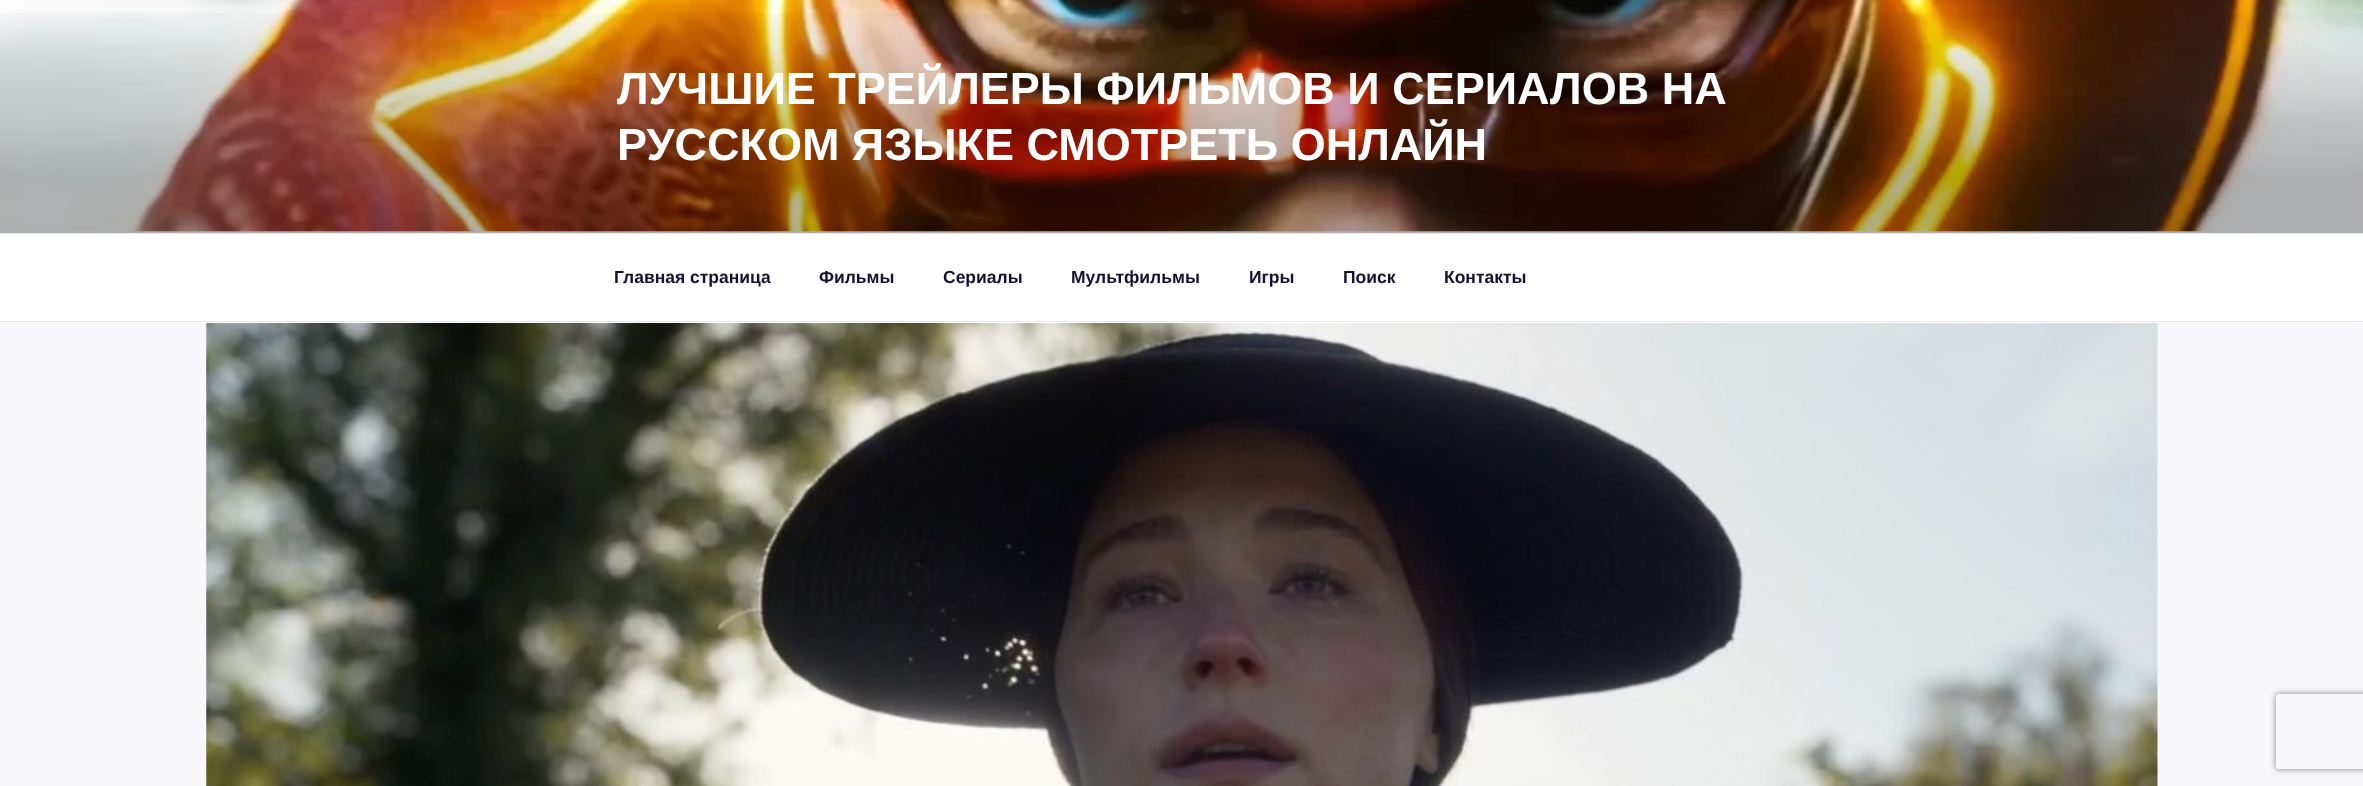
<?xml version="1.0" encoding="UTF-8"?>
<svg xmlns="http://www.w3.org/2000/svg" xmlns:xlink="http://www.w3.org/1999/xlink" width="2363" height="786">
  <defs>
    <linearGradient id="g1" gradientUnits="userSpaceOnUse" x1="1182" y1="0" x2="1182" y2="233"><stop offset="0" stop-color="#000000" stop-opacity="0" /><stop offset="0.75" stop-color="#000000" stop-opacity="0.3" /><stop offset="1" stop-color="#000000" stop-opacity="0.3" /></linearGradient>
    <clipPath id="clip1"><path d="M 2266 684 h 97 v 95 h -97 z m 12.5 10 h 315 c 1.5 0 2.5 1 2.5 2.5 v 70 c 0 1.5 -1 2.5 -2.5 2.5 h -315 c -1.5 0 -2.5 -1 -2.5 -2.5 v -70 c 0 -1.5 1 -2.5 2.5 -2.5 z" clip-rule="evenodd" /></clipPath>
  </defs>
  <rect width="100%" height="100%" fill="#f8f7fc" />
  <image x="0" y="0" width="2363" height="232" xlink:href="image1.png" />
  <rect y="13" width="2363" height="220" fill="url(#g1)" />
  <rect y="234" width="2363" height="89" fill="#ffffff" />
  <rect y="233" width="2363" height="1" fill="#e7e4f6" />
  <rect y="321" width="2363" height="1" fill="#e7e4f6" />
  <image x="206" y="323" width="1952" height="463" xlink:href="image2.png" />
  <g clip-path="url(#clip1)">
    <rect x="2276" y="694" width="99" height="75" rx="2.5" fill="#808080" filter="blur(3px)" />
  </g>
  <text x="617" y="104" style="font-family: Liberation Sans; font-size: 45px; font-weight: bold; fill: #ffffff">ЛУЧШИЕ ТРЕЙЛЕРЫ ФИЛЬМОВ И СЕРИАЛОВ НА</text>
  <text x="617" y="160" style="font-family: Liberation Sans; font-size: 45px; font-weight: bold; fill: #ffffff">РУССКОМ ЯЗЫКЕ СМОТРЕТЬ ОНЛАЙН</text>
  <text x="614" y="283" style="font-family: Liberation Sans; font-size: 17.5px; font-weight: bold; fill: #161132">Главная страница</text>
  <text x="819" y="283" style="font-family: Liberation Sans; font-size: 17.5px; font-weight: bold; fill: #161132">Фильмы</text>
  <text x="943" y="283" style="font-family: Liberation Sans; font-size: 17.5px; font-weight: bold; fill: #161132">Сериалы</text>
  <text x="1071" y="283" style="font-family: Liberation Sans; font-size: 17.5px; font-weight: bold; fill: #161132">Мультфильмы</text>
  <text x="1249" y="283" style="font-family: Liberation Sans; font-size: 17.5px; font-weight: bold; fill: #161132">Игры</text>
  <text x="1343" y="283" style="font-family: Liberation Sans; font-size: 17.5px; font-weight: bold; fill: #161132">Поиск</text>
  <text x="1444" y="283" style="font-family: Liberation Sans; font-size: 17.5px; font-weight: bold; fill: #161132">Контакты</text>
</svg>
